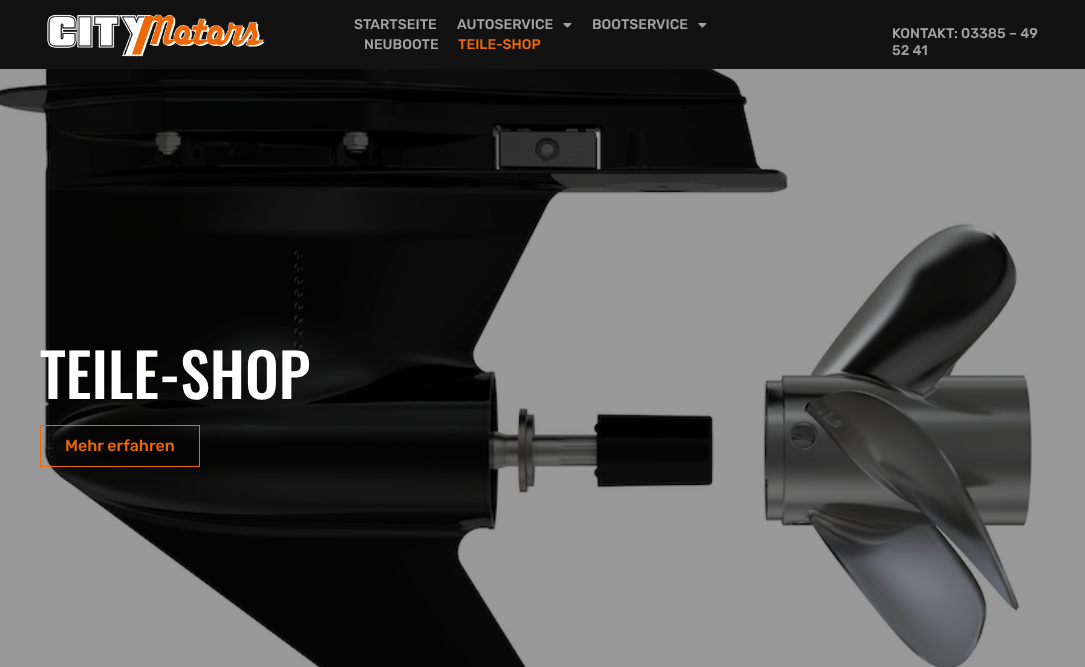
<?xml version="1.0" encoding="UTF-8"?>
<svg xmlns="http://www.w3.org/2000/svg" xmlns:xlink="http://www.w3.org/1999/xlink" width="1085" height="667">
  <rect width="100%" height="100%" fill="#ffffff" />
  <rect width="1085" height="69" fill="#121212" />
  <image x="47" y="14" width="218" height="43" xlink:href="image1.png" />
  <image x="563" y="23" width="9" height="5" xlink:href="image2.png" />
  <image x="698" y="23" width="9" height="5" xlink:href="image2.png" />
  <image x="0" y="69" width="1085" height="598" xlink:href="image3.png" />
  <rect x="40.5" y="425.5" width="159" height="41" fill="none" stroke="#ec6709" />
  <text x="354" y="29" style="font-family: Rubik; font-size: 14px; font-weight: 500; fill: #a3a3a3">STARTSEITE</text>
  <text x="457" y="29" style="font-family: Rubik; font-size: 14px; font-weight: 500; fill: #a3a3a3">AUTOSERVICE</text>
  <text x="592" y="29" style="font-family: Rubik; font-size: 14px; font-weight: 500; fill: #a3a3a3">BOOTSERVICE</text>
  <text x="364" y="49" style="font-family: Rubik; font-size: 14px; font-weight: 500; fill: #a3a3a3">NEUBOOTE</text>
  <text x="458" y="49" style="font-family: Rubik; font-size: 14px; font-weight: 500; fill: #ec6709">TEILE-SHOP</text>
  <text x="892" y="38" style="font-family: Rubik; font-size: 14px; font-weight: 500; fill: #a3a3a3">KONTAKT: 03385 – 49</text>
  <text x="892" y="55" style="font-family: Rubik; font-size: 14px; font-weight: 500; fill: #a3a3a3">52 41</text>
  <text x="40" y="399" style="font-family: Oswald; font-size: 60px; font-weight: 500; fill: #ffffff">TEILE-SHOP</text>
  <text x="65" y="451" style="font-family: Rubik; font-size: 16px; font-weight: 500; fill: #ec6709">Mehr erfahren</text>
</svg>
